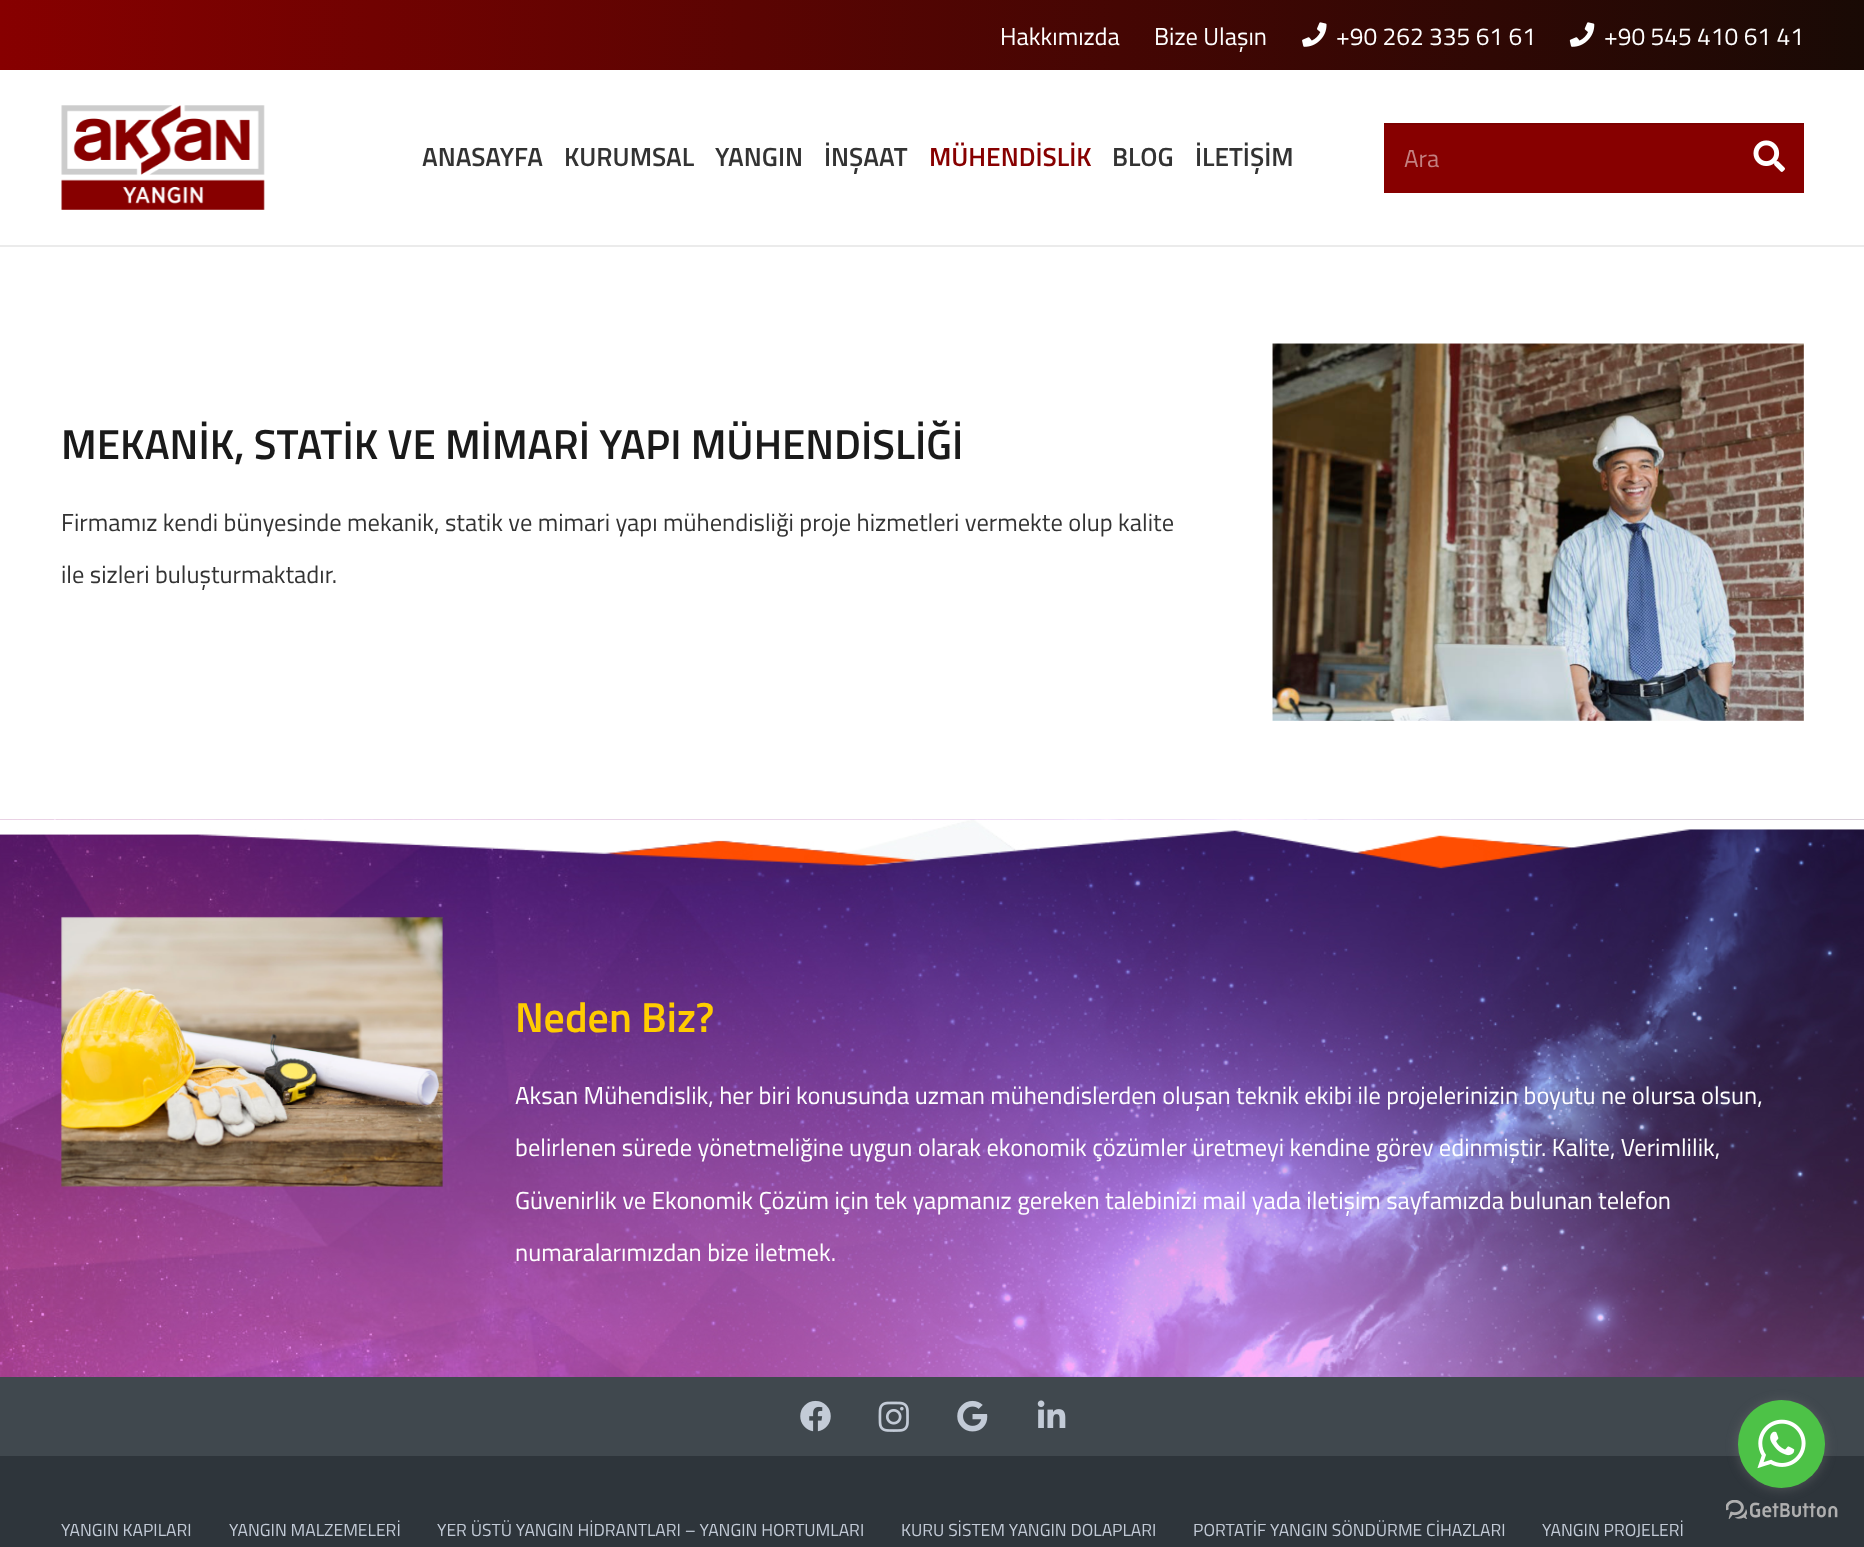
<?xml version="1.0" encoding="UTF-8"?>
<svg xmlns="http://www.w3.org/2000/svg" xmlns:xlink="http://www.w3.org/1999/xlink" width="1864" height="1547">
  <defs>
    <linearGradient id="g1" gradientUnits="userSpaceOnUse" x1="0" y1="35" x2="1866" y2="35"><stop offset="0" stop-color="#870000" /><stop offset="1" stop-color="#190a05" /></linearGradient>
  </defs>
  <rect width="100%" height="100%" fill="#ffffff" />
  <rect width="1864" height="70" fill="url(#g1)" />
  <image x="1302" y="22" width="25" height="25" xlink:href="image1.png" />
  <image x="1569" y="22" width="26" height="25" xlink:href="image2.png" />
  <path d="M 0 245 v 2 h 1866 v -175 v 173 z" fill="#ebebeb" />
  <image x="61" y="105" width="204" height="105" xlink:href="image3.png" />
  <rect x="1384" y="125" width="420" height="68" fill="#870000" />
  <rect x="1384" y="123" width="420" height="2" fill="#7c0000" />
  <image x="1753" y="140" width="32" height="32" xlink:href="image4.png" />
  <image x="1272" y="343" width="532" height="378" xlink:href="image5.png" />
  <image x="0" y="819" width="1864" height="558" xlink:href="image6.png" />
  <image x="61" y="916" width="382" height="271" xlink:href="image7.png" />
  <rect y="1456" width="1864" height="91" fill="#2e353b" />
  <image x="1726" y="1500" width="112" height="19" xlink:href="image9.png" />
  <rect y="1377" width="1864" height="79" fill="#40484e" />
  <rect x="1738" y="1402" width="87" height="87" rx="43.5" fill="#888888" fill-opacity="0.4" filter="blur(6px)" />
  <rect x="1738" y="1400" width="87" height="88" rx="43.5" fill="#4dc247" />
  <image x="1757" y="1419" width="49" height="50" xlink:href="image8.png" />
  <image x="800" y="1400" width="31" height="32" xlink:href="image10.png" />
  <image x="878" y="1401" width="31" height="31" xlink:href="image11.png" />
  <image x="957" y="1400" width="31" height="32" xlink:href="image12.png" />
  <image x="1037" y="1400" width="29" height="28" xlink:href="image13.png" />
  <text x="1000" y="45" style="font-family: Titillium Web; font-size: 24.5px; fill: #ffffff">Hakkımızda</text>
  <text x="1154" y="45" style="font-family: Titillium Web; font-size: 24.5px; fill: #ffffff">Bize Ulaşın</text>
  <text x="1336" y="45" style="font-family: Titillium Web; font-size: 24.5px; fill: #ffffff">+90 262 335 61 61</text>
  <text x="1604" y="45" style="font-family: Titillium Web; font-size: 24.5px; fill: #ffffff">+90 545 410 61 41</text>
  <text x="422" y="166" style="font-family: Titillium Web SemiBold; font-size: 26.25px; font-weight: 600; fill: #333333">ANASAYFA</text>
  <text x="564" y="166" style="font-family: Titillium Web SemiBold; font-size: 26.25px; font-weight: 600; fill: #333333">KURUMSAL</text>
  <text x="715" y="166" style="font-family: Titillium Web SemiBold; font-size: 26.25px; font-weight: 600; fill: #333333">YANGIN</text>
  <text x="824" y="166" style="font-family: Titillium Web SemiBold; font-size: 26.25px; font-weight: 600; fill: #333333">İNŞAAT</text>
  <text x="929" y="166" style="font-family: Titillium Web SemiBold; font-size: 26.25px; font-weight: 600; fill: #870000">MÜHENDİSLİK</text>
  <text x="1112" y="166" style="font-family: Titillium Web SemiBold; font-size: 26.25px; font-weight: 600; fill: #333333">BLOG</text>
  <text x="1195" y="166" style="font-family: Titillium Web SemiBold; font-size: 26.25px; font-weight: 600; fill: #333333">İLETİŞİM</text>
  <text x="1404" y="167" style="font-family: Titillium Web; font-size: 24.5px; fill: #c38080">Ara</text>
  <text x="61" y="459" style="font-family: Titillium Web SemiBold; font-size: 42px; font-weight: 600; fill: #1a1a1a">MEKANİK, STATİK VE MİMARİ YAPI MÜHENDİSLİĞİ</text>
  <text x="61" y="531" style="font-family: Titillium Web; font-size: 24.5px; fill: #333333">Firmamız kendi bünyesinde mekanik, statik ve mimari yapı mühendisliği proje hizmetleri vermekte olup kalite</text>
  <text x="61" y="583" style="font-family: Titillium Web; font-size: 24.5px; fill: #333333">ile sizleri buluşturmaktadır.</text>
  <text x="515" y="1032" style="font-family: Titillium Web SemiBold; font-size: 42px; font-weight: 600; fill: #ffcc00">Neden Biz?</text>
  <text x="515" y="1104" style="font-family: Titillium Web; font-size: 24.5px; fill: #ffffff">Aksan Mühendislik, her biri konusunda uzman mühendislerden oluşan teknik ekibi ile projelerinizin boyutu ne olursa olsun,</text>
  <text x="515" y="1156" style="font-family: Titillium Web; font-size: 24.5px; fill: #ffffff">belirlenen sürede yönetmeliğine uygun olarak ekonomik çözümler üretmeyi kendine görev edinmiştir. Kalite, Verimlilik,</text>
  <text x="515" y="1209" style="font-family: Titillium Web; font-size: 24.5px; fill: #ffffff">Güvenirlik ve Ekonomik Çözüm için tek yapmanız gereken talebinizi mail yada iletişim sayfamızda bulunan telefon</text>
  <text x="515" y="1261" style="font-family: Titillium Web; font-size: 24.5px; fill: #ffffff">numaralarımızdan bize iletmek.</text>
  <text x="61" y="1536" style="font-family: Titillium Web; font-size: 17.5px; fill: #c3cbd7">YANGIN KAPILARI</text>
  <text x="229" y="1536" style="font-family: Titillium Web; font-size: 17.5px; fill: #c3cbd7">YANGIN MALZEMELERİ</text>
  <text x="437" y="1536" style="font-family: Titillium Web; font-size: 17.5px; fill: #c3cbd7">YER ÜSTÜ YANGIN HİDRANTLARI – YANGIN HORTUMLARI</text>
  <text x="901" y="1536" style="font-family: Titillium Web; font-size: 17.5px; fill: #c3cbd7">KURU SİSTEM YANGIN DOLAPLARI</text>
  <text x="1193" y="1536" style="font-family: Titillium Web; font-size: 17.5px; fill: #c3cbd7">PORTATİF YANGIN SÖNDÜRME CİHAZLARI</text>
  <text x="1542" y="1536" style="font-family: Titillium Web; font-size: 17.5px; fill: #c3cbd7">YANGIN PROJELERİ</text>
</svg>
